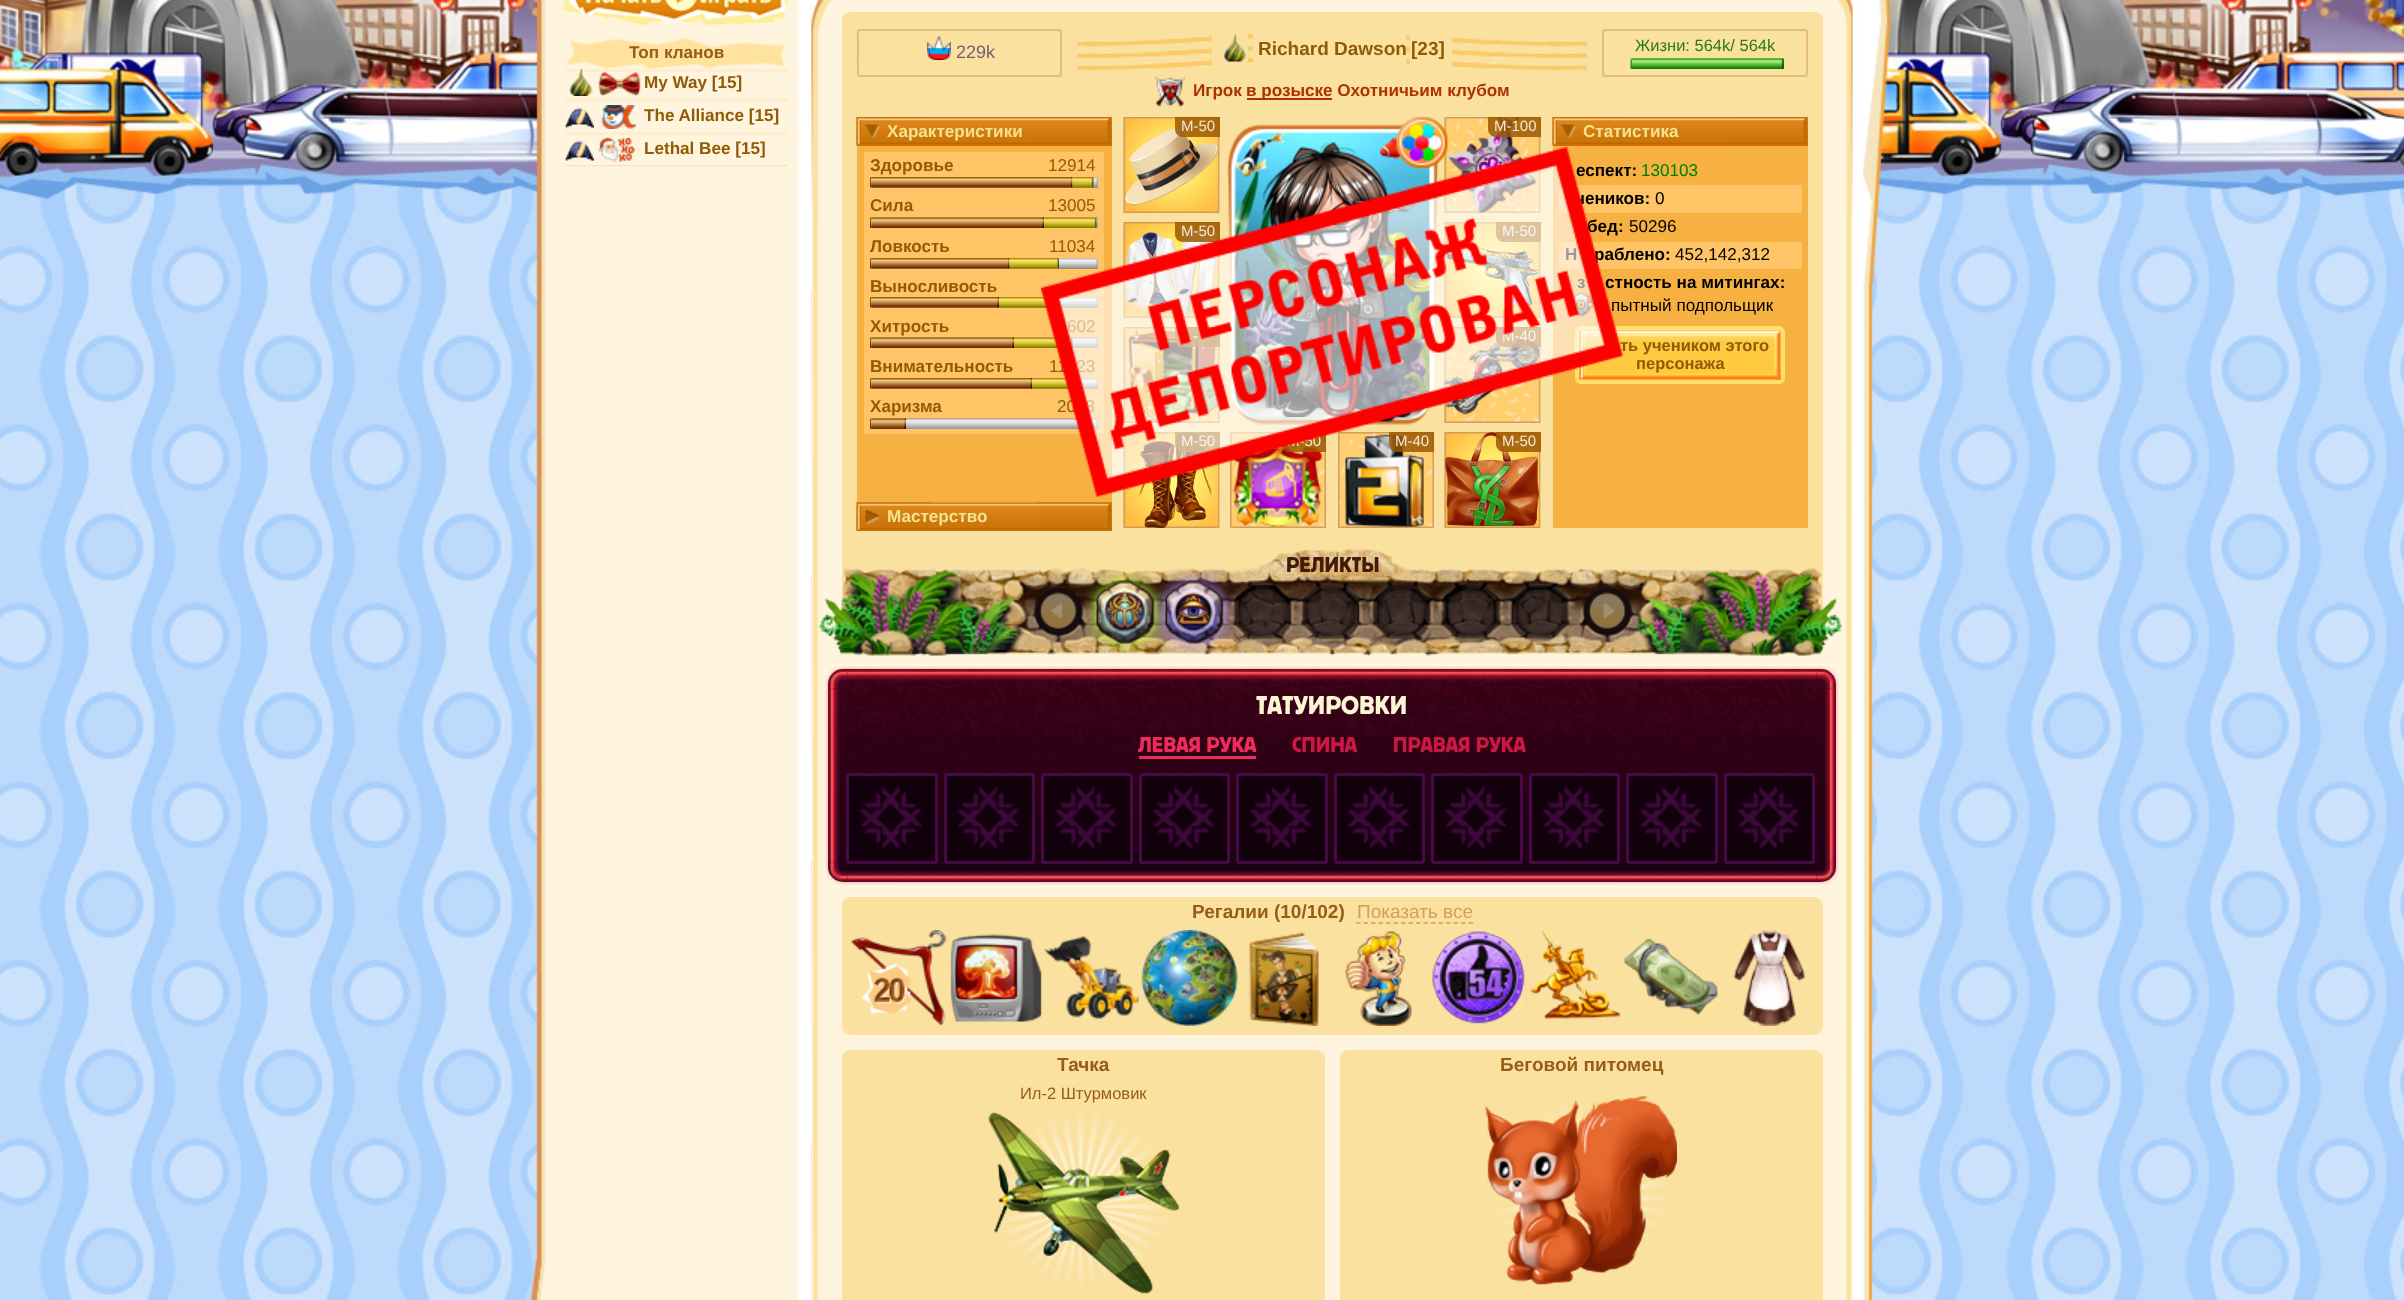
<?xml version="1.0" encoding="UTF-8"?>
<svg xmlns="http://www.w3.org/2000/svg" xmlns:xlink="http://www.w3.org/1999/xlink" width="2404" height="1300">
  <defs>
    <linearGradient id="g1" gradientUnits="userSpaceOnUse" x1="1332" y1="669" x2="1332" y2="882"><stop offset="0" stop-color="#3a0216" /><stop offset="1" stop-color="#1a0115" /></linearGradient>
  </defs>
  <rect width="100%" height="100%" fill="#ffffff" />
  <image x="0" y="202" width="2404" height="1098" xlink:href="image1.png" />
  <image x="0" y="0" width="2404" height="203" xlink:href="image2.png" />
  <image x="536" y="0" width="1337" height="1300" xlink:href="image3.png" />
  <image x="1863" y="0" width="28" height="285" xlink:href="image4.png" />
  <image x="530" y="1260" width="16" height="40" xlink:href="image5.png" />
  <image x="562" y="0" width="227" height="26" xlink:href="image6.png" />
  <image x="566" y="37" width="220" height="32" xlink:href="image7.png" />
  <rect x="565" y="69" width="223" height="3" fill="#feedcf" />
  <rect x="565" y="99" width="223" height="3" fill="#feedcf" />
  <image x="569" y="69" width="24" height="27" xlink:href="image8.png" />
  <image x="598" y="72" width="43" height="24" xlink:href="image9.png" />
  <rect x="565" y="132" width="223" height="3" fill="#feedcf" />
  <image x="565" y="107" width="29" height="21" xlink:href="image10.png" />
  <image x="601" y="105" width="36" height="24" xlink:href="image11.png" />
  <image x="565" y="165" width="223" height="2" xlink:href="image12.png" />
  <image x="565" y="140" width="29" height="21" xlink:href="image10.png" />
  <image x="598" y="138" width="37" height="24" xlink:href="image13.png" />
  <rect x="1852" width="1" height="1300" fill="#fff4de" />
  <image x="811" y="0" width="1042" height="1300" xlink:href="image14.png" />
  <image x="811" y="0" width="1042" height="221" xlink:href="image15.png" />
  <rect x="842" y="12" width="981" height="642" rx="8" fill="#fbe19f" />
  <image x="856" y="32" width="731" height="39" xlink:href="image20.png" />
  <rect x="857" y="32" width="220" height="39" fill="#fbe19f" />
  <rect x="858" y="30" width="203" height="46" rx="2" fill="none" stroke="#e5bc7a" stroke-width="2" />
  <image x="927" y="36" width="24" height="24" xlink:href="image16.png" />
  <rect x="1603" y="30" width="204" height="46" rx="2" fill="none" stroke="#e5bc7a" stroke-width="2" />
  <image x="1630" y="58" width="154" height="11" xlink:href="image17.png" />
  <image x="1632" y="58" width="152" height="1" xlink:href="image18.png" />
  <rect x="1783" y="59" width="1" height="10" fill="#2d9513" />
  <image x="1632" y="58" width="152" height="11" xlink:href="image19.png" />
  <rect x="1212" y="33" width="36" height="33" fill="#fbe19f" />
  <rect x="1253" y="32" width="153" height="33" fill="#fbe19f" />
  <rect x="1410" y="33" width="42" height="35" fill="#fbe19f" />
  <image x="1223" y="34" width="24" height="28" xlink:href="image21.png" />
  <image x="1155" y="76" width="30" height="31" xlink:href="image22.png" />
  <rect x="1247" y="98" width="85" height="2" fill="#ac3202" />
  <rect x="857" y="146" width="255" height="357" fill="#f7b142" />
  <rect x="857" y="117" width="255" height="29" fill="#f36301" />
  <image x="856" y="117" width="256" height="29" xlink:href="image23.png" />
  <image x="856" y="117" width="76" height="29" xlink:href="image24.png" />
  <image x="1036" y="117" width="76" height="29" xlink:href="image25.png" />
  <rect x="864" y="152" width="240" height="282" fill="#ffc466" />
  <image x="870" y="177" width="228" height="11" xlink:href="image26.png" />
  <image x="871" y="177" width="227" height="11" xlink:href="image27.png" />
  <image x="871" y="177" width="202" height="11" xlink:href="image28.png" />
  <image x="1072" y="177" width="22" height="11" xlink:href="image29.png" />
  <image x="870" y="217" width="228" height="11" xlink:href="image30.png" />
  <image x="871" y="217" width="227" height="11" xlink:href="image31.png" />
  <image x="871" y="217" width="173" height="11" xlink:href="image32.png" />
  <image x="1044" y="217" width="53" height="11" xlink:href="image33.png" />
  <image x="870" y="258" width="228" height="11" xlink:href="image26.png" />
  <image x="871" y="258" width="227" height="11" xlink:href="image27.png" />
  <image x="871" y="258" width="139" height="11" xlink:href="image34.png" />
  <image x="1009" y="258" width="50" height="11" xlink:href="image35.png" />
  <image x="870" y="297" width="228" height="11" xlink:href="image26.png" />
  <image x="871" y="297" width="227" height="11" xlink:href="image27.png" />
  <image x="871" y="297" width="128" height="11" xlink:href="image36.png" />
  <image x="999" y="297" width="49" height="11" xlink:href="image37.png" />
  <image x="870" y="337" width="228" height="11" xlink:href="image30.png" />
  <image x="871" y="337" width="227" height="11" xlink:href="image31.png" />
  <image x="871" y="337" width="143" height="11" xlink:href="image38.png" />
  <image x="1014" y="337" width="59" height="11" xlink:href="image39.png" />
  <image x="870" y="378" width="228" height="11" xlink:href="image26.png" />
  <image x="871" y="378" width="227" height="11" xlink:href="image27.png" />
  <image x="871" y="378" width="161" height="11" xlink:href="image40.png" />
  <image x="1032" y="378" width="38" height="11" xlink:href="image41.png" />
  <image x="870" y="418" width="228" height="11" xlink:href="image30.png" />
  <image x="871" y="418" width="227" height="11" xlink:href="image31.png" />
  <image x="871" y="418" width="35" height="11" xlink:href="image42.png" />
  <rect x="931" y="503" width="181" height="28" fill="#cf790d" />
  <image x="856" y="502" width="256" height="29" xlink:href="image43.png" />
  <image x="856" y="502" width="76" height="29" xlink:href="image44.png" />
  <image x="1036" y="502" width="76" height="28" xlink:href="image45.png" />
  <image x="1123" y="117" width="1" height="96" xlink:href="image46.png" />
  <rect x="1219" y="117" width="1" height="96" fill="#eed48f" />
  <image x="1123" y="117" width="97" height="96" xlink:href="image47.png" />
  <image x="1125" y="128" width="94" height="77" xlink:href="image48.png" />
  <path d="M 1175 117 h 45 v 20 h -37 c -4.5 0 -8 -3.5 -8 -8 z" fill="#9e5800" fill-opacity="0.85" />
  <image x="1227" y="124" width="212" height="301" xlink:href="image49.png" />
  <image x="1262" y="142" width="147" height="275" xlink:href="image50.png" />
  <image x="1294" y="211" width="66" height="19" xlink:href="image51.png" />
  <image x="1444" y="117" width="1" height="96" xlink:href="image46.png" />
  <rect x="1540" y="117" width="1" height="96" fill="#eed48f" />
  <image x="1444" y="117" width="97" height="96" xlink:href="image53.png" />
  <image x="1448" y="117" width="89" height="96" xlink:href="image54.png" />
  <path d="M 1488 117 h 53 v 20 h -45 c -4.5 0 -8 -3.5 -8 -8 z" fill="#9e5800" fill-opacity="0.85" />
  <image x="1123" y="222" width="1" height="96" xlink:href="image46.png" />
  <rect x="1219" y="222" width="1" height="96" fill="#eed48f" />
  <image x="1123" y="222" width="97" height="96" xlink:href="image56.png" />
  <image x="1125" y="228" width="93" height="87" xlink:href="image57.png" />
  <path d="M 1175 222 h 45 v 20 h -37 c -4.5 0 -8 -3.5 -8 -8 z" fill="#9e5800" fill-opacity="0.85" />
  <image x="1444" y="222" width="97" height="96" xlink:href="image58.png" />
  <image x="1444" y="222" width="97" height="96" xlink:href="image59.png" />
  <path d="M 1496 222 h 45 v 20 h -37 c -4.5 0 -8 -3.5 -8 -8 z" fill="#9e5800" fill-opacity="0.85" />
  <image x="1446" y="242" width="93" height="64" xlink:href="image60.png" />
  <image x="1123" y="327" width="97" height="96" xlink:href="image61.png" />
  <image x="1123" y="327" width="97" height="96" xlink:href="image62.png" />
  <image x="1128" y="329" width="92" height="94" xlink:href="image63.png" />
  <path d="M 1175 327 h 45 v 20 h -37 c -4.5 0 -8 -3.5 -8 -8 z" fill="#9e5800" fill-opacity="0.85" />
  <image x="1353" y="328" width="71" height="94" xlink:href="image64.png" />
  <image x="1444" y="329" width="1" height="94" xlink:href="image65.png" />
  <rect x="1540" y="327" width="1" height="96" fill="#eed48f" />
  <image x="1444" y="327" width="97" height="96" xlink:href="image66.png" />
  <image x="1444" y="334" width="96" height="81" xlink:href="image67.png" />
  <path d="M 1496 327 h 45 v 20 h -37 c -4.5 0 -8 -3.5 -8 -8 z" fill="#9e5800" fill-opacity="0.85" />
  <image x="1123" y="434" width="1" height="94" xlink:href="image65.png" />
  <rect x="1219" y="432" width="1" height="96" fill="#eed48f" />
  <image x="1123" y="432" width="97" height="96" xlink:href="image68.png" />
  <image x="1139" y="432" width="73" height="96" xlink:href="image69.png" />
  <path d="M 1175 432 h 45 v 20 h -37 c -4.5 0 -8 -3.5 -8 -8 z" fill="#9e5800" fill-opacity="0.85" />
  <image x="1230" y="432" width="96" height="96" xlink:href="image70.png" />
  <image x="1232" y="433" width="90" height="94" xlink:href="image71.png" />
  <path d="M 1281 432 h 45 v 20 h -37 c -4.5 0 -8 -3.5 -8 -8 z" fill="#9e5800" fill-opacity="0.85" />
  <image x="1338" y="432" width="96" height="96" xlink:href="image72.png" />
  <image x="1345" y="434" width="79" height="93" xlink:href="image73.png" />
  <path d="M 1389 432 h 45 v 20 h -37 c -4.5 0 -8 -3.5 -8 -8 z" fill="#9e5800" fill-opacity="0.85" />
  <image x="1444" y="432" width="1" height="96" xlink:href="image46.png" />
  <rect x="1540" y="432" width="1" height="96" fill="#eed48f" />
  <image x="1444" y="432" width="97" height="96" xlink:href="image74.png" />
  <image x="1445" y="432" width="94" height="94" xlink:href="image75.png" />
  <path d="M 1496 432 h 45 v 20 h -37 c -4.5 0 -8 -3.5 -8 -8 z" fill="#9e5800" fill-opacity="0.85" />
  <rect x="1553" y="146" width="255" height="382" fill="#f7b142" />
  <rect x="1553" y="117" width="255" height="29" fill="#f36301" />
  <image x="1552" y="117" width="256" height="29" xlink:href="image76.png" />
  <image x="1552" y="117" width="76" height="29" xlink:href="image24.png" />
  <image x="1732" y="117" width="76" height="29" xlink:href="image25.png" />
  <rect x="1559" y="185" width="243" height="28" fill="#ffc466" />
  <rect x="1559" y="242" width="243" height="27" fill="#ffc466" />
  <image x="1572" y="292" width="21" height="25" xlink:href="image77.png" />
  <rect x="1577.5" y="328.5" width="205" height="53" rx="3.5" fill="none" stroke="#fee168" stroke-width="5" />
  <image x="1579" y="330" width="202" height="50" xlink:href="image78.png" />
  <image x="1774" y="330" width="7" height="50" xlink:href="image79.png" />
  <image x="1579" y="373" width="202" height="7" xlink:href="image80.png" />
  <image x="1774" y="373" width="7" height="7" xlink:href="image81.png" />
  <image x="819" y="568" width="1023" height="88" xlink:href="image82.png" />
  <image x="1258" y="549" width="152" height="29" xlink:href="image83.png" />
  <image x="1039" y="592" width="38" height="37" xlink:href="image84.png" />
  <image x="1086" y="570" width="80" height="86" xlink:href="image85.png" />
  <image x="1153" y="570" width="82" height="85" xlink:href="image86.png" />
  <image x="1588" y="592" width="38" height="37" xlink:href="image87.png" />
  <rect x="828" y="669" width="1008" height="213" rx="15" fill="url(#g1)" />
  <image x="843" y="669" width="980" height="138" xlink:href="image88.png" />
  <image x="825" y="666" width="23" height="23" xlink:href="image89.png" />
  <image x="847" y="666" width="970" height="15" xlink:href="image90.png" />
  <image x="1816" y="666" width="23" height="23" xlink:href="image91.png" />
  <image x="825" y="688" width="15" height="175" xlink:href="image92.png" />
  <image x="1824" y="688" width="15" height="175" xlink:href="image93.png" />
  <image x="825" y="862" width="23" height="23" xlink:href="image94.png" />
  <image x="847" y="862" width="970" height="23" xlink:href="image95.png" />
  <image x="1816" y="862" width="23" height="23" xlink:href="image96.png" />
  <rect x="1139" y="756" width="117" height="3" fill="#ef2b5a" />
  <rect x="846" y="773" width="92" height="91" rx="3" fill="#12010c" />
  <image x="859" y="786" width="64" height="64" xlink:href="image97.png" />
  <rect x="847.5" y="774.5" width="89" height="88" rx="1.5" fill="none" stroke="#480a46" stroke-width="3" />
  <rect x="944" y="773" width="91" height="91" rx="3" fill="#12010c" />
  <image x="957" y="786" width="63" height="64" xlink:href="image98.png" />
  <rect x="945.5" y="774.5" width="88" height="88" rx="1.5" fill="none" stroke="#480a46" stroke-width="3" />
  <rect x="1041" y="773" width="92" height="91" rx="3" fill="#12010c" />
  <image x="1054" y="786" width="64" height="64" xlink:href="image99.png" />
  <rect x="1042.5" y="774.5" width="89" height="88" rx="1.5" fill="none" stroke="#480a46" stroke-width="3" />
  <rect x="1139" y="773" width="91" height="91" rx="3" fill="#12010c" />
  <image x="1152" y="786" width="63" height="64" xlink:href="image100.png" />
  <rect x="1140.5" y="774.5" width="88" height="88" rx="1.5" fill="none" stroke="#480a46" stroke-width="3" />
  <rect x="1236" y="773" width="92" height="91" rx="3" fill="#12010c" />
  <image x="1249" y="786" width="64" height="64" xlink:href="image101.png" />
  <rect x="1237.5" y="774.5" width="89" height="88" rx="1.5" fill="none" stroke="#480a46" stroke-width="3" />
  <rect x="1334" y="773" width="91" height="91" rx="3" fill="#12010c" />
  <image x="1347" y="786" width="63" height="64" xlink:href="image100.png" />
  <rect x="1335.5" y="774.5" width="88" height="88" rx="1.5" fill="none" stroke="#480a46" stroke-width="3" />
  <rect x="1431" y="773" width="92" height="91" rx="3" fill="#12010c" />
  <image x="1444" y="786" width="64" height="64" xlink:href="image97.png" />
  <rect x="1432.5" y="774.5" width="89" height="88" rx="1.5" fill="none" stroke="#480a46" stroke-width="3" />
  <rect x="1529" y="773" width="91" height="91" rx="3" fill="#12010c" />
  <image x="1542" y="786" width="63" height="64" xlink:href="image98.png" />
  <rect x="1530.5" y="774.5" width="88" height="88" rx="1.5" fill="none" stroke="#480a46" stroke-width="3" />
  <rect x="1626" y="773" width="92" height="91" rx="3" fill="#12010c" />
  <image x="1639" y="786" width="64" height="64" xlink:href="image97.png" />
  <rect x="1627.5" y="774.5" width="89" height="88" rx="1.5" fill="none" stroke="#480a46" stroke-width="3" />
  <rect x="1724" y="773" width="91" height="91" rx="3" fill="#12010c" />
  <image x="1737" y="786" width="63" height="64" xlink:href="image98.png" />
  <rect x="1725.5" y="774.5" width="88" height="88" rx="1.5" fill="none" stroke="#480a46" stroke-width="3" />
  <rect x="842" y="897" width="981" height="138" fill="#fbe19f" />
  <image x="842" y="897" width="8" height="8" xlink:href="image102.png" />
  <image x="1814" y="897" width="9" height="8" xlink:href="image103.png" />
  <path d="M 1356 923 h 117" fill="none" stroke="#d39d5b" stroke-width="1.5" stroke-dasharray="4.5 3" />
  <image x="850" y="930" width="97" height="96" xlink:href="image104.png" />
  <image x="950" y="934" width="92" height="88" xlink:href="image105.png" />
  <image x="1044" y="935" width="95" height="84" xlink:href="image106.png" />
  <image x="1141" y="930" width="97" height="96" xlink:href="image107.png" />
  <image x="1249" y="932" width="70" height="94" xlink:href="image108.png" />
  <image x="1345" y="931" width="67" height="95" xlink:href="image109.png" />
  <image x="1432" y="931" width="95" height="93" xlink:href="image110.png" />
  <image x="1530" y="930" width="91" height="89" xlink:href="image111.png" />
  <image x="1624" y="938" width="94" height="77" xlink:href="image112.png" />
  <image x="1733" y="930" width="72" height="96" xlink:href="image113.png" />
  <image x="842" y="1027" width="8" height="8" xlink:href="image114.png" />
  <image x="1814" y="1027" width="9" height="8" xlink:href="image115.png" />
  <rect x="842" y="1050" width="483" height="250" fill="#fbe19f" />
  <image x="842" y="1050" width="8" height="8" xlink:href="image102.png" />
  <image x="1316" y="1050" width="9" height="8" xlink:href="image103.png" />
  <image x="988" y="1110" width="191" height="184" xlink:href="image116.png" />
  <image x="988" y="1112" width="191" height="182" xlink:href="image117.png" />
  <rect x="1340" y="1050" width="483" height="250" fill="#fbe19f" />
  <image x="1340" y="1050" width="8" height="8" xlink:href="image118.png" />
  <image x="1814" y="1050" width="9" height="8" xlink:href="image103.png" />
  <image x="1485" y="1096" width="192" height="189" xlink:href="image119.png" />
  <image x="1485" y="1096" width="192" height="189" xlink:href="image120.png" />
  <text x="629" y="58" style="font-family: Liberation Sans; font-size: 17.1px; font-weight: bold; fill: #975d17">Топ кланов</text>
  <text x="644" y="88" style="font-family: Liberation Sans; font-size: 17.1px; font-weight: bold; fill: #905b06">My Way [15]</text>
  <text x="644" y="121" style="font-family: Liberation Sans; font-size: 17.1px; font-weight: bold; fill: #905b06">The Alliance [15]</text>
  <text x="644" y="154" style="font-family: Liberation Sans; font-size: 17.1px; font-weight: bold; fill: #905b06">Lethal Bee [15]</text>
  <text x="956" y="58" style="font-family: Liberation Sans; font-size: 18px; fill: #745e7e">229k</text>
  <text x="1635" y="51" style="font-family: Liberation Sans; font-size: 16.5px; fill: #2b7c12">Жизни: 564k/ 564k</text>
  <text x="1258" y="55" style="font-family: Liberation Sans; font-size: 19px; font-weight: bold; fill: #905b06">Richard Dawson</text>
  <text x="1411" y="55" style="font-family: Liberation Sans; font-size: 19px; font-weight: bold; fill: #905b06">[23]</text>
  <text x="1193" y="96" style="font-family: Liberation Sans; font-size: 17.1px; font-weight: bold; fill: #ac3202">Игрок</text>
  <text x="1246" y="96" style="font-family: Liberation Sans; font-size: 17.1px; font-weight: bold; fill: #ac3202">в розыске Охотничьим клубом</text>
  <text x="887" y="137" style="font-family: Liberation Sans; font-size: 17.1px; font-weight: bold; fill: #f5e390">Характеристики</text>
  <text x="870" y="171" style="font-family: Liberation Sans; font-size: 17.1px; font-weight: bold; fill: #905b06">Здоровье</text>
  <text x="1048" y="171" style="font-family: Liberation Sans; font-size: 17.1px; fill: #905b06">12914</text>
  <text x="870" y="211" style="font-family: Liberation Sans; font-size: 17.1px; font-weight: bold; fill: #905b06">Сила</text>
  <text x="1048" y="211" style="font-family: Liberation Sans; font-size: 17.1px; fill: #905b06">13005</text>
  <text x="870" y="252" style="font-family: Liberation Sans; font-size: 17.1px; font-weight: bold; fill: #905b06">Ловкость</text>
  <text x="1049" y="252" style="font-family: Liberation Sans; font-size: 17.1px; fill: #905b06">11034</text>
  <text x="870" y="292" style="font-family: Liberation Sans; font-size: 17.1px; font-weight: bold; fill: #905b06">Выносливость</text>
  <text x="870" y="332" style="font-family: Liberation Sans; font-size: 17.1px; font-weight: bold; fill: #905b06">Хитрость</text>
  <text x="1067" y="332" style="font-family: Liberation Sans; font-size: 17.1px; fill: #905b06">602</text>
  <text x="870" y="372" style="font-family: Liberation Sans; font-size: 17.1px; font-weight: bold; fill: #905b06">Внимательность</text>
  <text x="1049" y="372" style="font-family: Liberation Sans; font-size: 17.1px; fill: #905b06">11823</text>
  <text x="870" y="412" style="font-family: Liberation Sans; font-size: 17.1px; font-weight: bold; fill: #905b06">Харизма</text>
  <text x="1057" y="412" style="font-family: Liberation Sans; font-size: 17.1px; fill: #905b06">2008</text>
  <text x="887" y="522" style="font-family: Liberation Sans; font-size: 17.1px; font-weight: bold; fill: #f5e390">Мастерство</text>
  <text x="1181" y="131" style="font-family: Liberation Sans; font-size: 15px; fill: #f3e9db">М-50</text>
  <text x="1494" y="131" style="font-family: Liberation Sans; font-size: 15px; fill: #f3e9db">М-100</text>
  <text x="1181" y="236" style="font-family: Liberation Sans; font-size: 15px; fill: #f3e9db">М-50</text>
  <text x="1502" y="236" style="font-family: Liberation Sans; font-size: 15px; fill: #f3e9db">М-50</text>
  <text x="1193" y="341" style="font-family: Liberation Sans; font-size: 15px; fill: #f3e9db">-</text>
  <text x="1502" y="341" style="font-family: Liberation Sans; font-size: 15px; fill: #f3e9db">М-40</text>
  <text x="1181" y="446" style="font-family: Liberation Sans; font-size: 15px; fill: #f3e9db">М-50</text>
  <text x="1287" y="446" style="font-family: Liberation Sans; font-size: 15px; fill: #f3e9db">М-50</text>
  <text x="1395" y="446" style="font-family: Liberation Sans; font-size: 15px; fill: #f3e9db">М-40</text>
  <text x="1502" y="446" style="font-family: Liberation Sans; font-size: 15px; fill: #f3e9db">М-50</text>
  <text x="1583" y="137" style="font-family: Liberation Sans; font-size: 17.1px; font-weight: bold; fill: #f5e390">Статистика</text>
  <text x="1576" y="176" style="font-family: Liberation Sans; font-size: 17.1px; font-weight: bold; fill: #000000">еспект:</text>
  <text x="1641" y="176" style="font-family: Liberation Sans; font-size: 17.1px; fill: #008000">130103</text>
  <text x="1575" y="204" style="font-family: Liberation Sans; font-size: 17.1px; font-weight: bold; fill: #000000">чеников:</text>
  <text x="1655" y="204" style="font-family: Liberation Sans; font-size: 17.1px; fill: #000000">0</text>
  <text x="1587" y="232" style="font-family: Liberation Sans; font-size: 17.1px; font-weight: bold; fill: #000000">бед:</text>
  <text x="1629" y="232" style="font-family: Liberation Sans; font-size: 17.1px; fill: #000000">50296</text>
  <text x="1565" y="260" style="font-family: Liberation Sans; font-size: 17.1px; font-weight: bold; fill: #000000">Н</text>
  <text x="1594" y="260" style="font-family: Liberation Sans; font-size: 17.1px; font-weight: bold; fill: #000000">раблено:</text>
  <text x="1675" y="260" style="font-family: Liberation Sans; font-size: 17.1px; fill: #000000">452,142,312</text>
  <text x="1577" y="288" style="font-family: Liberation Sans; font-size: 17.1px; font-weight: bold; fill: #000000">з</text>
  <text x="1605" y="288" style="font-family: Liberation Sans; font-size: 17.1px; font-weight: bold; fill: #000000">стность на митингах:</text>
  <text x="1611" y="311" style="font-family: Liberation Sans; font-size: 17.1px; fill: #000000">пытный подпольщик</text>
  <text x="1620" y="351" style="font-family: Liberation Sans; font-size: 16.5px; font-weight: bold; fill: #905b06">ть учеником этого</text>
  <image x="1041" y="147" width="582" height="350" xlink:href="image55.png" />
  <image x="1396" y="117" width="52" height="51" xlink:href="image52.png" />
  <text x="1636" y="369" style="font-family: Liberation Sans; font-size: 16.5px; font-weight: bold; fill: #905b06">персонажа</text>
  <text x="1286" y="572" style="font-family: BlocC; font-size: 22.5px; fill: #451a09">РЕЛИКТЫ</text>
  <text x="1256" y="714" style="font-family: BlocC; font-size: 27px; fill: #fbf5d4">ТАТУИРОВКИ</text>
  <text x="1138" y="752" style="font-family: BlocC; font-size: 22.5px; fill: #ef2b5a">ЛЕВАЯ РУКА</text>
  <text x="1292" y="752" style="font-family: BlocC; font-size: 22.5px; fill: #cd1743">СПИНА</text>
  <text x="1393" y="752" style="font-family: BlocC; font-size: 22.5px; fill: #cd1743">ПРАВАЯ РУКА</text>
  <text x="1192" y="918" style="font-family: Liberation Sans; font-size: 19px; font-weight: bold; fill: #975d17">Регалии (10/102)</text>
  <text x="1357" y="918" style="font-family: Liberation Sans; font-size: 19px; fill: #d39d5b">Показать все</text>
  <text x="1057" y="1071" style="font-family: Liberation Sans; font-size: 19px; font-weight: bold; fill: #975d17">Тачка</text>
  <text x="1020" y="1099" style="font-family: Liberation Sans; font-size: 16.5px; fill: #975d17">Ил-2 Штурмовик</text>
  <text x="1500" y="1071" style="font-family: Liberation Sans; font-size: 19px; font-weight: bold; fill: #975d17">Беговой питомец</text>
</svg>
